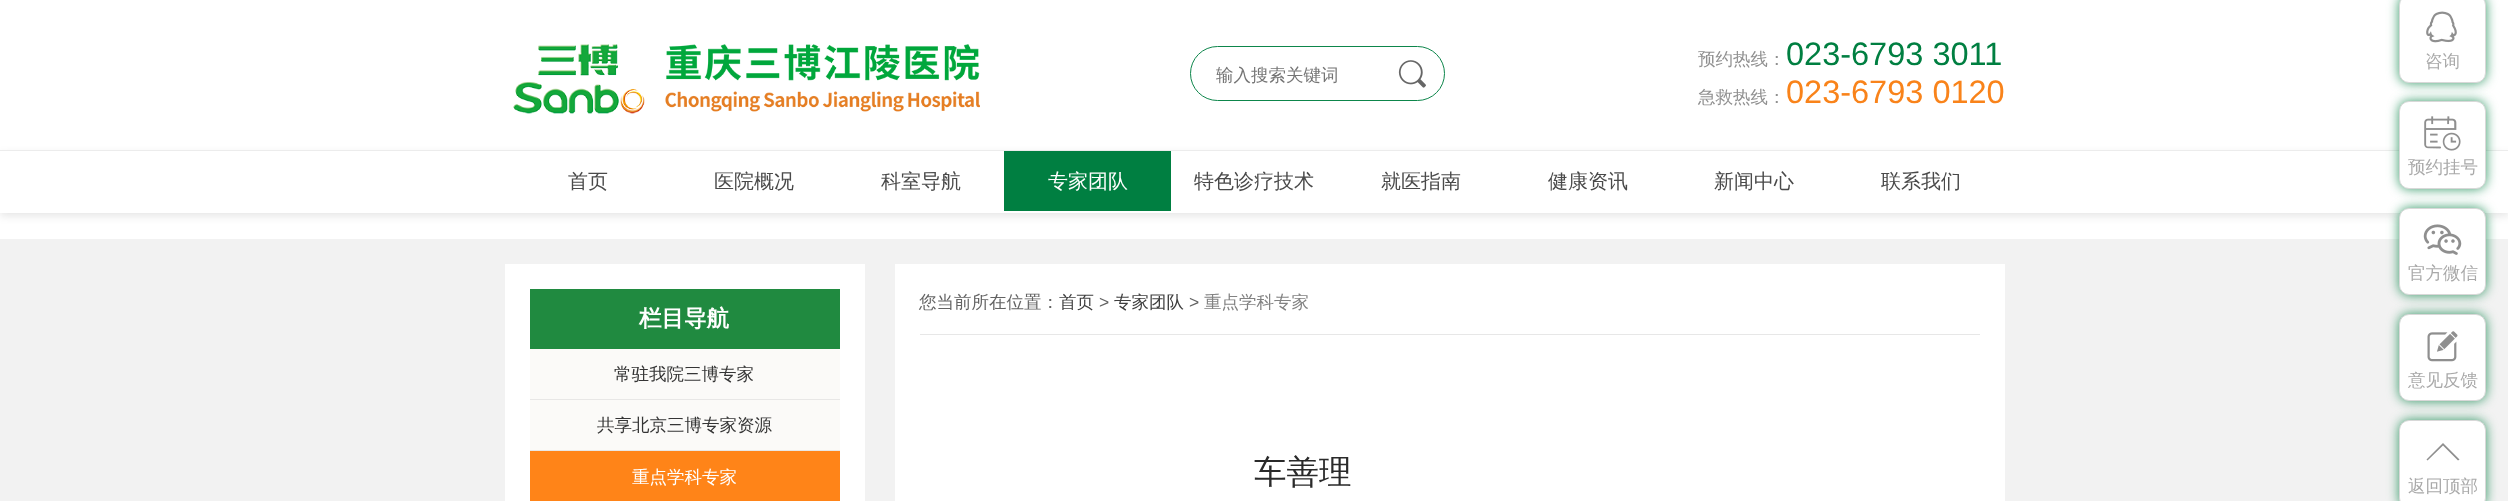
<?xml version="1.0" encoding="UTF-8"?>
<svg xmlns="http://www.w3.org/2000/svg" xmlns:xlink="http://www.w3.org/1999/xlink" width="2508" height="501">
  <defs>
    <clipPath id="clip1"><rect x="1216" y="65" width="228" height="23" /></clipPath>
  </defs>
  <rect width="100%" height="100%" fill="#ffffff" />
  <image x="513" y="44" width="467" height="70" xlink:href="image1.png" />
  <rect x="1190.5" y="46.5" width="254" height="54" rx="27" fill="none" stroke="#0d864b" />
  <image x="1398" y="60" width="28" height="28" xlink:href="image2.png" />
  <rect x="2399" y="-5" width="87" height="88" rx="10" fill="#007f41" fill-opacity="0.8" filter="blur(6px)" />
  <rect x="2399.5" y="-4.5" width="86" height="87" rx="9.5" fill="#ffffff" stroke="#d8d8d8" />
  <image x="2426" y="11" width="31" height="32" xlink:href="image3.png" />
  <rect y="154" width="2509" height="62" fill="#000000" fill-opacity="0.1" filter="blur(4px)" />
  <rect y="151" width="2508" height="62" fill="#ffffff" />
  <rect y="150" width="2508" height="1" fill="#ececec" />
  <rect x="2399" y="101" width="87" height="88" rx="10" fill="#007f41" fill-opacity="0.8" filter="blur(6px)" />
  <rect x="2399.5" y="101.5" width="86" height="87" rx="9.5" fill="#ffffff" stroke="#d8d8d8" />
  <image x="2424" y="116" width="37" height="35" xlink:href="image4.png" />
  <rect y="239" width="2508" height="262" fill="#f2f2f2" />
  <rect x="2399" y="208" width="87" height="87" rx="10" fill="#007f41" fill-opacity="0.8" filter="blur(6px)" />
  <rect x="2399.5" y="208.5" width="86" height="86" rx="9.5" fill="#ffffff" stroke="#d8d8d8" />
  <image x="2423" y="224" width="39" height="31" xlink:href="image5.png" />
  <rect x="2399" y="314" width="87" height="87" rx="10" fill="#007f41" fill-opacity="0.8" filter="blur(6px)" />
  <rect x="2399.5" y="314.5" width="86" height="86" rx="9.5" fill="#ffffff" stroke="#d8d8d8" />
  <image x="2427" y="331" width="31" height="31" xlink:href="image6.png" />
  <rect x="2399" y="420" width="87" height="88" rx="10" fill="#007f41" fill-opacity="0.8" filter="blur(6px)" />
  <rect x="2399.5" y="420.5" width="86" height="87" rx="9.5" fill="#ffffff" stroke="#d8d8d8" />
  <path d="M 2458 460.5 l 1.5 -1 l -16.5 -16.5 l -16.5 16.5 l 1 1 l 15.5 -15 z" fill="#8f8f8f" />
  <rect x="1004" y="151" width="167" height="60" fill="#007f41" />
  <rect x="505" y="264" width="360" height="237" fill="#ffffff" />
  <rect x="530" y="289" width="310" height="60" fill="#208a40" />
  <rect x="530" y="349" width="310" height="50" fill="#fbfaf8" />
  <rect x="530" y="399" width="310" height="1" fill="#e8e7e6" />
  <rect x="530" y="400" width="310" height="50" fill="#fbfaf8" />
  <rect x="530" y="450" width="310" height="1" fill="#e8e7e6" />
  <rect x="530" y="451" width="310" height="50" fill="#ff8418" />
  <rect x="895" y="264" width="1110" height="237" fill="#ffffff" />
  <rect x="920" y="334" width="1060" height="1" fill="#e7e7e7" />
  <g clip-path="url(#clip1)">
    <text x="1216" y="81" style="font-family: WenQuanYi Zen Hei; font-size: 17.5px; font-weight: 500; fill: #757575">输入搜索关键词</text>
  </g>
  <text x="1698" y="65" style="font-family: WenQuanYi Zen Hei; font-size: 17.5px; font-weight: 500; fill: #909090">预约热线：</text>
  <text x="1786" y="65" style="font-family: Liberation Sans; font-size: 32.5px; fill: #007f41">023-6793 3011</text>
  <text x="1698" y="103" style="font-family: WenQuanYi Zen Hei; font-size: 17.5px; font-weight: 500; fill: #909090">急救热线：</text>
  <text x="1786" y="103" style="font-family: Liberation Sans; font-size: 32.5px; fill: #f9831a">023-6793 0120</text>
  <text x="2425" y="67" style="font-family: WenQuanYi Zen Hei; font-size: 17.5px; font-weight: 500; fill: #a9a9a9">咨询</text>
  <text x="2408" y="173" style="font-family: WenQuanYi Zen Hei; font-size: 17.5px; font-weight: 500; fill: #a9a9a9">预约挂号</text>
  <text x="2408" y="279" style="font-family: WenQuanYi Zen Hei; font-size: 17.5px; font-weight: 500; fill: #a9a9a9">官方微信</text>
  <text x="2408" y="386" style="font-family: WenQuanYi Zen Hei; font-size: 17.5px; font-weight: 500; fill: #a9a9a9">意见反馈</text>
  <text x="2408" y="492" style="font-family: WenQuanYi Zen Hei; font-size: 17.5px; font-weight: 500; fill: #a9a9a9">返回顶部</text>
  <text x="568" y="188" style="font-family: WenQuanYi Zen Hei; font-size: 20px; font-weight: 500; fill: #4a4a4a">首页</text>
  <text x="714" y="188" style="font-family: WenQuanYi Zen Hei; font-size: 20px; font-weight: 500; fill: #4a4a4a">医院概况</text>
  <text x="881" y="188" style="font-family: WenQuanYi Zen Hei; font-size: 20px; font-weight: 500; fill: #4a4a4a">科室导航</text>
  <text x="1048" y="188" style="font-family: WenQuanYi Zen Hei; font-size: 20px; font-weight: 500; fill: #ffffff">专家团队</text>
  <text x="1194" y="188" style="font-family: WenQuanYi Zen Hei; font-size: 20px; font-weight: 500; fill: #4a4a4a">特色诊疗技术</text>
  <text x="1381" y="188" style="font-family: WenQuanYi Zen Hei; font-size: 20px; font-weight: 500; fill: #4a4a4a">就医指南</text>
  <text x="1548" y="188" style="font-family: WenQuanYi Zen Hei; font-size: 20px; font-weight: 500; fill: #4a4a4a">健康资讯</text>
  <text x="1714" y="188" style="font-family: WenQuanYi Zen Hei; font-size: 20px; font-weight: 500; fill: #4a4a4a">新闻中心</text>
  <text x="1881" y="188" style="font-family: WenQuanYi Zen Hei; font-size: 20px; font-weight: 500; fill: #4a4a4a">联系我们</text>
  <text x="639" y="326" style="font-family: WenQuanYi Zen Hei; font-size: 22.5px; font-weight: bold; fill: #ffffff">栏目导航</text>
  <text x="614" y="380" style="font-family: WenQuanYi Zen Hei; font-size: 17.5px; font-weight: 500; fill: #353535">常驻我院三博专家</text>
  <text x="597" y="431" style="font-family: WenQuanYi Zen Hei; font-size: 17.5px; font-weight: 500; fill: #353535">共享北京三博专家资源</text>
  <text x="632" y="483" style="font-family: WenQuanYi Zen Hei; font-size: 17.5px; font-weight: 500; fill: #ffffff">重点学科专家</text>
  <text x="919" y="308" style="font-family: WenQuanYi Zen Hei; font-size: 17.5px; font-weight: 500; fill: #636363">您当前所在位置：</text>
  <text x="1059" y="308" style="font-family: WenQuanYi Zen Hei; font-size: 17.5px; font-weight: 500; fill: #3e3e3e">首页</text>
  <text x="1099" y="308" style="font-family: Liberation Sans; font-size: 17.5px; fill: #636363">&gt;</text>
  <text x="1114" y="308" style="font-family: WenQuanYi Zen Hei; font-size: 17.5px; font-weight: 500; fill: #3e3e3e">专家团队</text>
  <text x="1189" y="308" style="font-family: Liberation Sans; font-size: 17.5px; fill: #636363">&gt;</text>
  <text x="1204" y="308" style="font-family: WenQuanYi Zen Hei; font-size: 17.5px; font-weight: 500; fill: #828282">重点学科专家</text>
  <text x="1254" y="483" style="font-family: WenQuanYi Zen Hei; font-size: 32.5px; font-weight: 500; fill: #2a2a2a">车善理</text>
</svg>
